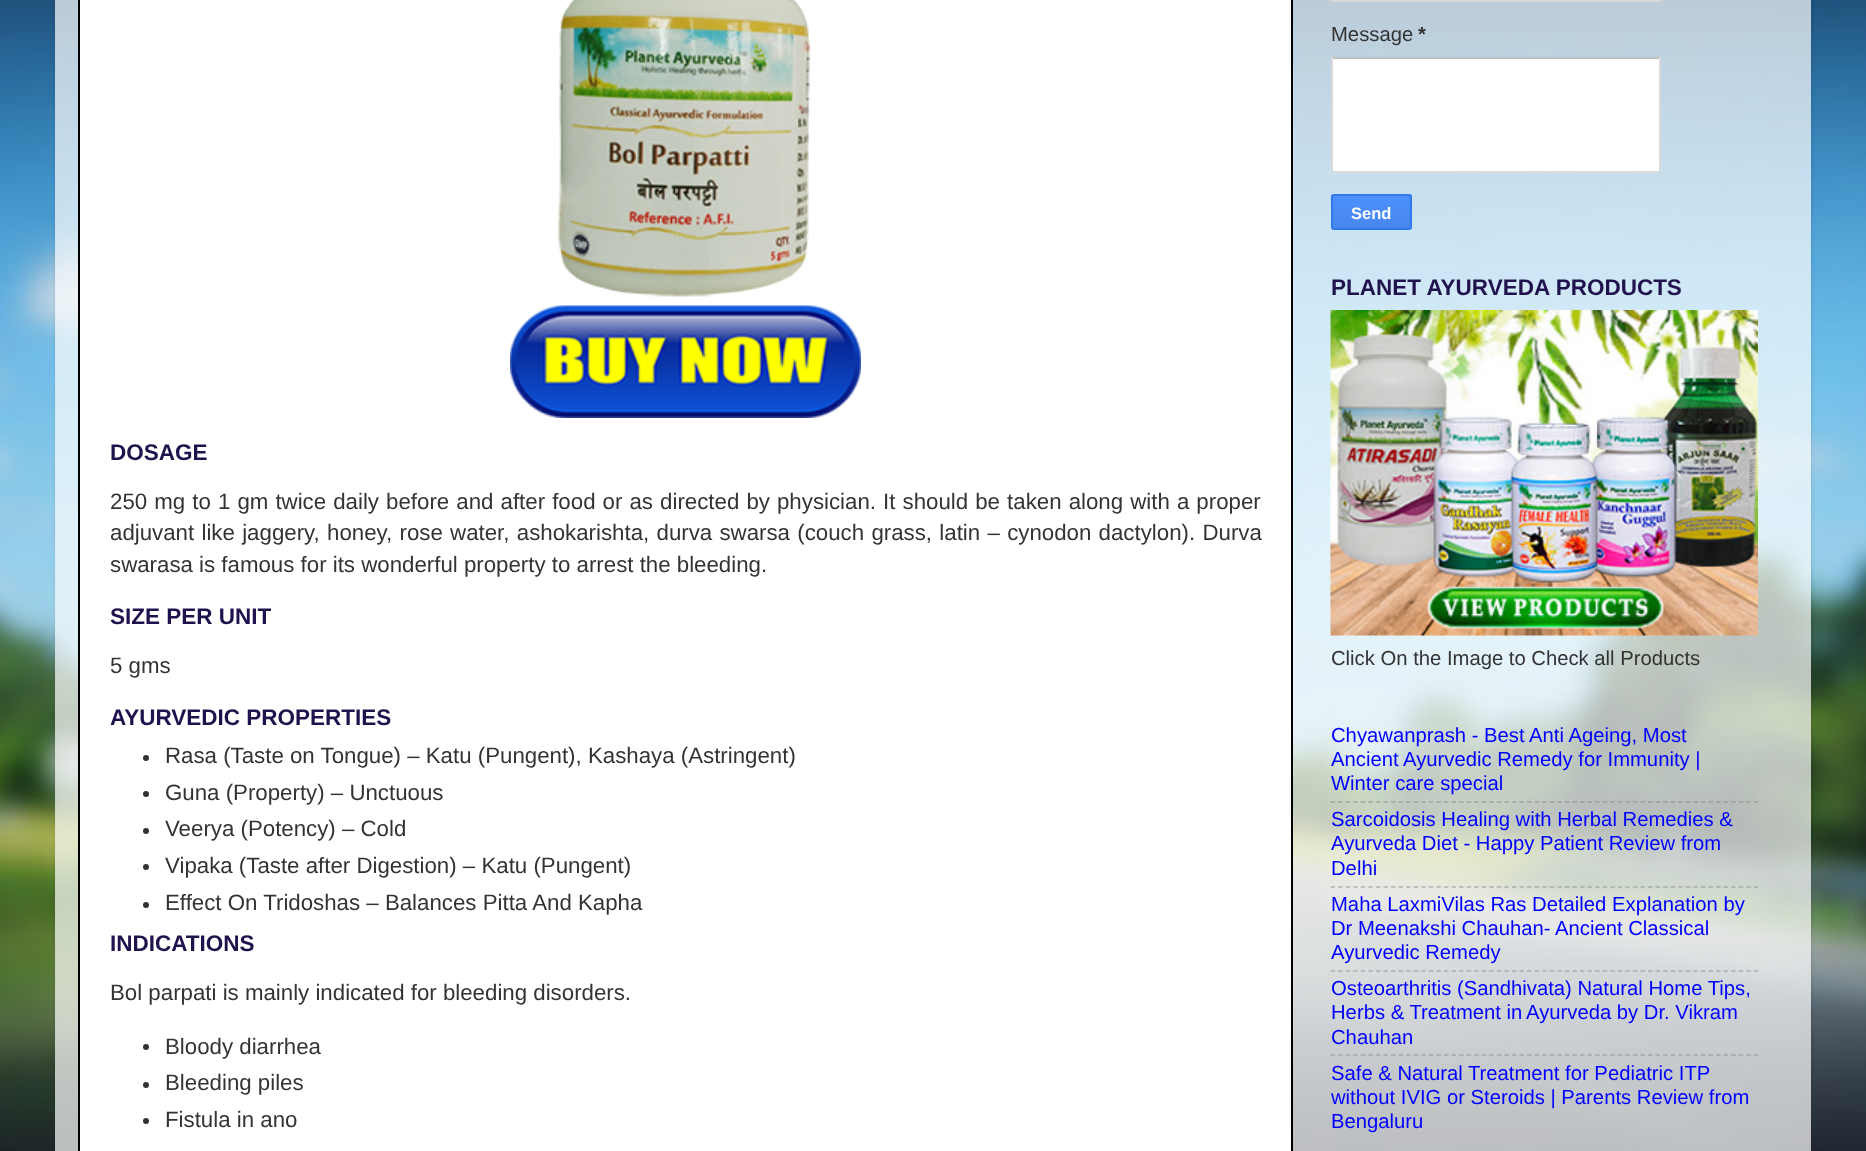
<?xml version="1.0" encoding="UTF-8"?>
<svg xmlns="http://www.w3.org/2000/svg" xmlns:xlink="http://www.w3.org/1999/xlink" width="1866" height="1151">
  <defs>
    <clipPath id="clip1"><path d="M 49 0 h 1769 v 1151 h -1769 z m 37 -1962 h 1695 c 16.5 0 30 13.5 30 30 v 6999 h -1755 v -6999 c 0 -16.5 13.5 -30 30 -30 z" clip-rule="evenodd" /></clipPath>
    <clipPath id="clip2"><rect x="1331" y="194" width="81" height="36" rx="3" /></clipPath>
    <linearGradient id="g1" gradientUnits="userSpaceOnUse" x1="1371" y1="195" x2="1371" y2="228"><stop offset="0" stop-color="#4d90fe" /><stop offset="1" stop-color="#4787ed" /></linearGradient>
  </defs>
  <rect width="100%" height="100%" fill="#ffffff" />
  <image x="0" y="0" width="1866" height="1151" xlink:href="image1.png" />
  <g clip-path="url(#clip1)">
    <rect x="56" y="-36" width="1755" height="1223" rx="30" fill="#000000" fill-opacity="0.15" filter="blur(2px)" />
  </g>
  <rect x="55" width="1756" height="1151" fill="#ffffff" fill-opacity="0.7" />
  <rect x="79" y="-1" width="1213" height="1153" fill="#ffffff" stroke="#000000" stroke-width="2" />
  <image x="557" y="0" width="254" height="297" xlink:href="image2.png" />
  <image x="510" y="305" width="351" height="113" xlink:href="image3.png" />
  <circle cx="146" cy="758" r="3" fill="#333333" />
  <circle cx="146" cy="794" r="3" fill="#333333" />
  <circle cx="146" cy="831" r="3" fill="#333333" />
  <circle cx="146" cy="867" r="3" fill="#333333" />
  <circle cx="146" cy="905" r="3" fill="#333333" />
  <circle cx="146" cy="1047" r="3" fill="#333333" />
  <circle cx="146" cy="1085" r="3" fill="#333333" />
  <circle cx="146" cy="1121" r="3" fill="#333333" />
  <rect x="1331" width="330" height="2" fill="#d9d9d9" />
  <rect x="1333" y="59" width="326" height="112" fill="#ffffff" />
  <rect x="1331" y="57" width="330" height="2" fill="#c0c0c0" />
  <rect x="1659" y="57" width="2" height="116" fill="#d9d9d9" />
  <rect x="1331" y="171" width="330" height="2" fill="#d9d9d9" />
  <rect x="1331" y="57" width="2" height="116" fill="#d9d9d9" />
  <g clip-path="url(#clip2)">
    <rect x="1331" y="195" width="81" height="33" fill="url(#g1)" />
  </g>
  <rect x="1332" y="195" width="79" height="34" rx="2" fill="none" stroke="#3079ed" stroke-width="2" />
  <image x="1330" y="310" width="428" height="326" xlink:href="image4.png" />
  <path d="M 1330.5 802 h 427.5" fill="none" stroke="#808080" stroke-opacity="0.5" stroke-width="1.5" stroke-dasharray="4.5 3.06" />
  <path d="M 1330.5 887 h 427.5" fill="none" stroke="#808080" stroke-opacity="0.5" stroke-width="1.5" stroke-dasharray="4.5 3.06" />
  <path d="M 1330.5 971 h 427.5" fill="none" stroke="#808080" stroke-opacity="0.5" stroke-width="1.5" stroke-dasharray="4.5 3.06" />
  <path d="M 1330.5 1055 h 427.5" fill="none" stroke="#808080" stroke-opacity="0.5" stroke-width="1.5" stroke-dasharray="4.5 3.06" />
  <text x="110" y="460" style="font-family: Liberation Sans; font-size: 22.5px; font-weight: bold; fill: #20124d">DOSAGE</text>
  <text x="110" y="509" word-spacing="0.9" style="font-family: Liberation Sans; font-size: 22.27px; fill: #333333">250 mg to 1 gm twice daily before and after food or as directed by physician. It should be taken along with a proper</text>
  <text x="110" y="540" word-spacing="1.1" style="font-family: Liberation Sans; font-size: 22.27px; fill: #333333">adjuvant like jaggery, honey, rose water, ashokarishta, durva swarsa (couch grass, latin – cynodon dactylon). Durva</text>
  <text x="110" y="572" style="font-family: Liberation Sans; font-size: 22.27px; fill: #333333">swarasa is famous for its wonderful property to arrest the bleeding.</text>
  <text x="110" y="624" style="font-family: Liberation Sans; font-size: 22.5px; font-weight: bold; fill: #20124d">SIZE PER UNIT</text>
  <text x="110" y="673" style="font-family: Liberation Sans; font-size: 22.27px; fill: #333333">5 gms</text>
  <text x="110" y="725" style="font-family: Liberation Sans; font-size: 22.5px; font-weight: bold; fill: #20124d">AYURVEDIC PROPERTIES</text>
  <text x="165" y="763" style="font-family: Liberation Sans; font-size: 22.27px; fill: #333333">Rasa (Taste on Tongue) – Katu (Pungent), Kashaya (Astringent)</text>
  <text x="165" y="800" style="font-family: Liberation Sans; font-size: 22.27px; fill: #333333">Guna (Property) – Unctuous</text>
  <text x="165" y="836" style="font-family: Liberation Sans; font-size: 22.27px; fill: #333333">Veerya (Potency) – Cold</text>
  <text x="165" y="873" style="font-family: Liberation Sans; font-size: 22.27px; fill: #333333">Vipaka (Taste after Digestion) – Katu (Pungent)</text>
  <text x="165" y="910" style="font-family: Liberation Sans; font-size: 22.27px; fill: #333333">Effect On Tridoshas – Balances Pitta And Kapha</text>
  <text x="110" y="951" style="font-family: Liberation Sans; font-size: 22.5px; font-weight: bold; fill: #20124d">INDICATIONS</text>
  <text x="110" y="1000" style="font-family: Liberation Sans; font-size: 22.27px; fill: #333333">Bol parpati is mainly indicated for bleeding disorders.</text>
  <text x="165" y="1054" style="font-family: Liberation Sans; font-size: 22.27px; fill: #333333">Bloody diarrhea</text>
  <text x="165" y="1090" style="font-family: Liberation Sans; font-size: 22.27px; fill: #333333">Bleeding piles</text>
  <text x="165" y="1127" style="font-family: Liberation Sans; font-size: 22.27px; fill: #333333">Fistula in ano</text>
  <text x="1331" y="41" style="font-family: Liberation Sans; font-size: 20.25px; fill: #333333">Message</text>
  <text x="1418" y="41" style="font-family: Liberation Sans; font-size: 20.25px; font-weight: bold; fill: #333333">*</text>
  <text x="1351" y="219" style="font-family: Liberation Sans; font-size: 16.5px; font-weight: bold; fill: #ffffff">Send</text>
  <text x="1331" y="295" style="font-family: Liberation Sans; font-size: 22.5px; font-weight: bold; fill: #20124d">PLANET AYURVEDA PRODUCTS</text>
  <text x="1331" y="665" style="font-family: Liberation Sans; font-size: 20.25px; fill: #333333">Click On the Image to Check all Products</text>
  <text x="1331" y="742" style="font-family: Liberation Sans; font-size: 20.25px; fill: #0000ff">Chyawanprash - Best Anti Ageing, Most</text>
  <text x="1331" y="766" style="font-family: Liberation Sans; font-size: 20.25px; fill: #0000ff">Ancient Ayurvedic Remedy for Immunity |</text>
  <text x="1331" y="790" style="font-family: Liberation Sans; font-size: 20.25px; fill: #0000ff">Winter care special</text>
  <text x="1331" y="826" style="font-family: Liberation Sans; font-size: 20.25px; fill: #0000ff">Sarcoidosis Healing with Herbal Remedies &amp;</text>
  <text x="1331" y="850" style="font-family: Liberation Sans; font-size: 20.25px; fill: #0000ff">Ayurveda Diet - Happy Patient Review from</text>
  <text x="1331" y="875" style="font-family: Liberation Sans; font-size: 20.25px; fill: #0000ff">Delhi</text>
  <text x="1331" y="911" style="font-family: Liberation Sans; font-size: 20.25px; fill: #0000ff">Maha LaxmiVilas Ras Detailed Explanation by</text>
  <text x="1331" y="935" style="font-family: Liberation Sans; font-size: 20.25px; fill: #0000ff">Dr Meenakshi Chauhan- Ancient Classical</text>
  <text x="1331" y="959" style="font-family: Liberation Sans; font-size: 20.25px; fill: #0000ff">Ayurvedic Remedy</text>
  <text x="1331" y="995" style="font-family: Liberation Sans; font-size: 20.25px; fill: #0000ff">Osteoarthritis (Sandhivata) Natural Home Tips,</text>
  <text x="1331" y="1019" style="font-family: Liberation Sans; font-size: 20.25px; fill: #0000ff">Herbs &amp; Treatment in</text>
  <text x="1526" y="1019" style="font-family: Liberation Sans; font-size: 20.25px; fill: #0000ff">Ayurveda by Dr. Vikram</text>
  <text x="1331" y="1044" style="font-family: Liberation Sans; font-size: 20.25px; fill: #0000ff">Chauhan</text>
  <text x="1331" y="1080" style="font-family: Liberation Sans; font-size: 20.25px; fill: #0000ff">Safe &amp; Natural Treatment for Pediatric ITP</text>
  <text x="1331" y="1104" style="font-family: Liberation Sans; font-size: 20.25px; fill: #0000ff">without IVIG or Steroids | Parents Review from</text>
  <text x="1331" y="1128" style="font-family: Liberation Sans; font-size: 20.25px; fill: #0000ff">Bengaluru</text>
</svg>
